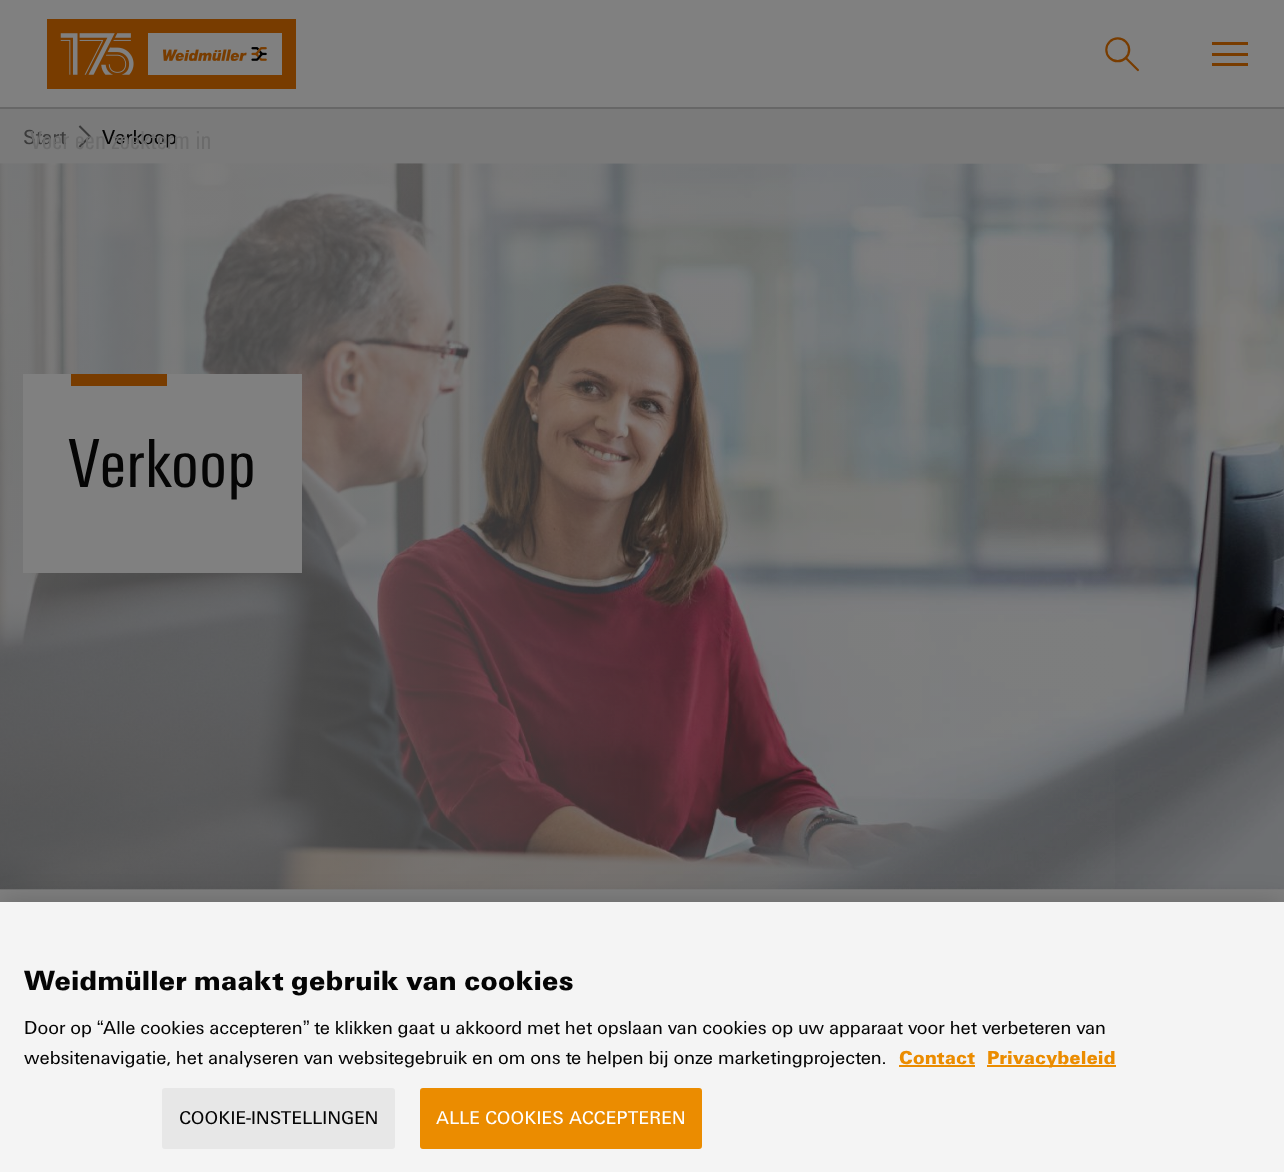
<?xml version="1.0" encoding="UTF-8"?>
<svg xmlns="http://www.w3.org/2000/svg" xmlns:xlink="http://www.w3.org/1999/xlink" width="1284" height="1172">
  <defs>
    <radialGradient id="g1" gradientUnits="userSpaceOnUse" cx="1605" cy="527" r="1646"><stop offset="0.3" stop-color="#7a7a7a" stop-opacity="0" /><stop offset="0.8" stop-color="#7a7a7a" stop-opacity="0.6" /></radialGradient>
  </defs>
  <rect width="100%" height="100%" fill="#808080" />
  <rect y="109" width="1284" height="55" fill="#7a7a7a" />
  <image x="78" y="125" width="14" height="23" xlink:href="image1.png" />
  <rect y="107" width="1284" height="2" fill="#676767" />
  <image x="47" y="19" width="249" height="70" xlink:href="image2.png" />
  <image x="1105" y="37" width="34" height="35" xlink:href="image3.png" />
  <rect x="1212" y="53" width="36" height="3" fill="#783c00" />
  <rect x="1212" y="42" width="36" height="3" fill="#783c00" />
  <rect x="1212" y="63" width="36" height="3" fill="#783c00" />
  <image x="0" y="163" width="1284" height="727" xlink:href="image4.png" />
  <rect y="164" width="1115" height="726" fill="url(#g1)" />
  <rect x="23" y="374" width="279" height="199" fill="#808080" />
  <rect x="71" y="374" width="96" height="12" fill="#783c00" />
  <rect y="902" width="1284" height="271" fill="#000000" fill-opacity="0.2" filter="blur(13.5px)" />
  <rect y="902" width="1284" height="270" fill="#f4f4f4" />
  <rect x="899" y="1065" width="76" height="2" fill="#eb8c00" />
  <rect x="987" y="1065" width="129" height="2" fill="#eb8c00" />
  <rect x="163" y="1089" width="231" height="59" rx="2" fill="#e7e7e7" stroke="#e7e7e7" stroke-width="2" />
  <rect x="421" y="1089" width="280" height="59" rx="2" fill="#eb8c00" stroke="#eb8c00" stroke-width="2" />
  <text x="23" y="144" style="font-family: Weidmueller; font-size: 21px; fill: #3b3b3b">Start</text>
  <text x="102" y="144" style="font-family: Weidmueller; font-size: 21px; fill: #050505">Verkoop</text>
  <text x="30" y="149" style="font-family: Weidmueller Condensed; font-size: 27px; fill: #6b6b6b">Voer een zoekterm in</text>
  <text x="68" y="487" style="font-family: Weidmueller Condensed; font-size: 72px; fill: #050505">Verkoop</text>
  <text x="24" y="990" style="font-family: Weidmueller; font-size: 28.75px; font-weight: bold; fill: #050505">Weidmüller maakt gebruik van cookies</text>
  <text x="24" y="1034" style="font-family: Weidmueller; font-size: 19.5px; fill: #050505">Door op</text>
  <text x="97" y="1034" style="font-family: Liberation Sans; font-size: 19.5px; fill: #050505">“</text>
  <text x="103" y="1034" style="font-family: Weidmueller; font-size: 19.5px; fill: #050505">Alle cookies accepteren</text>
  <text x="303" y="1034" style="font-family: Liberation Sans; font-size: 19.5px; fill: #050505">”</text>
  <text x="314" y="1034" style="font-family: Weidmueller; font-size: 19.5px; fill: #050505">te klikken gaat u akkoord met het opslaan van cookies op uw apparaat voor het verbeteren van</text>
  <text x="24" y="1064" style="font-family: Weidmueller; font-size: 19.5px; fill: #050505">websitenavigatie, het analyseren van websitegebruik en om ons te helpen bij onze marketingprojecten.</text>
  <text x="899" y="1064" style="font-family: Weidmueller; font-size: 19.5px; font-weight: bold; fill: #eb8c00">Contact</text>
  <text x="987" y="1064" style="font-family: Weidmueller; font-size: 19.5px; font-weight: bold; fill: #eb8c00">Privacybeleid</text>
  <text x="179" y="1124" style="font-family: Weidmueller; font-size: 19.25px; letter-spacing: 0.2px; fill: #050505">COOKIE-INSTELLINGEN</text>
  <text x="436" y="1124" style="font-family: Weidmueller; font-size: 19.25px; letter-spacing: 0.2px; fill: #ffffff">ALLE COOKIES ACCEPTEREN</text>
</svg>
